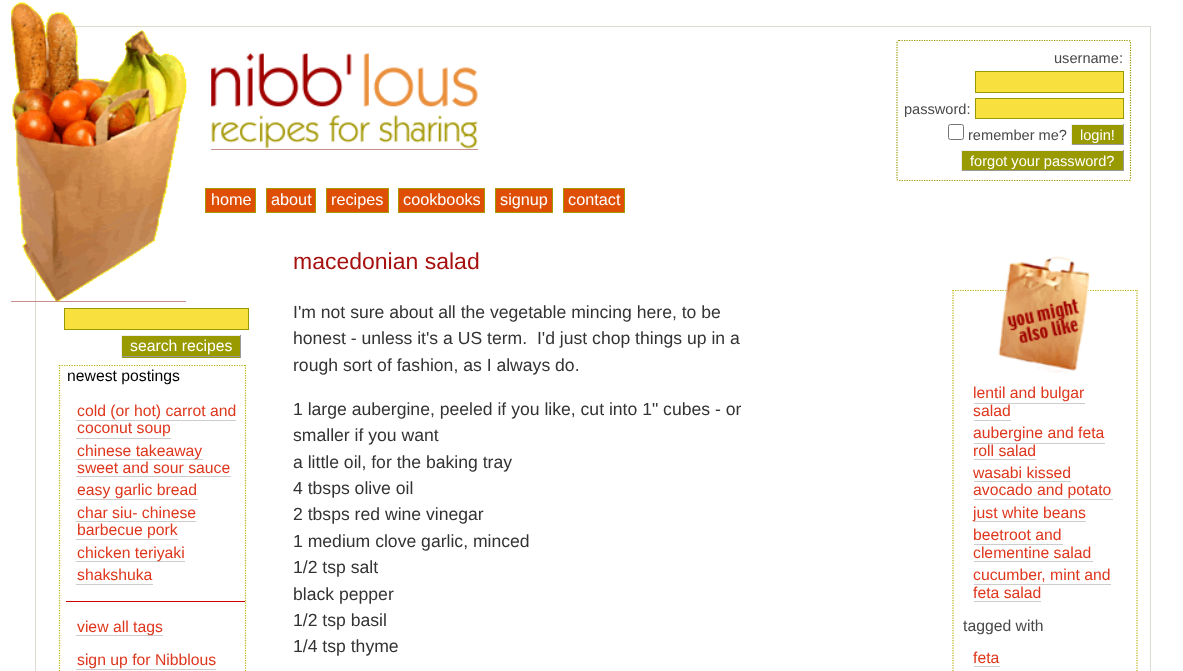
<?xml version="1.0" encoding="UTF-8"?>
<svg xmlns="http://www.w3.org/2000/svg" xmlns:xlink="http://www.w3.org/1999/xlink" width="1183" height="671">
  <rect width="100%" height="100%" fill="#ffffff" />
  <rect x="35.5" y="26.5" width="1115" height="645" fill="none" stroke="#dbdbcf" />
  <rect x="11" y="301" width="175" height="1" fill="#c58d8c" />
  <rect x="211" y="149" width="267" height="1" fill="#c58d8c" />
  <image x="11" y="2" width="176" height="300" xlink:href="image1.png" />
  <image x="211" y="52" width="267" height="97" xlink:href="image2.png" />
  <path d="M 899 40.5 h 230 c 1 0 1.5 1 1.5 2 v 136.5 c 0 1 -0.5 1.5 -1.5 1.5 h -230 c -1.5 0 -2 -0.5 -2 -1.5 v -136.5 c 0 -1 0.5 -2 2 -2 z" fill="none" stroke="#999900" stroke-width="1.2" stroke-dasharray="1.25 1.25" />
  <rect x="975.5" y="71.5" width="148" height="21" fill="#f8e03f" stroke="#999900" />
  <rect x="975.5" y="98.5" width="148" height="20" fill="#f8e03f" stroke="#999900" />
  <rect x="948.5" y="124.5" width="15" height="15" rx="2" fill="none" stroke="#767676" />
  <rect x="1072" y="125" width="51" height="19" fill="#999900" />
  <rect x="1071" y="124" width="53" height="1" fill="#eeeeee" />
  <rect x="1123" y="124" width="1" height="21" fill="#999999" />
  <rect x="1071" y="144" width="53" height="1" fill="#999999" />
  <rect x="1071" y="124" width="1" height="21" fill="#eeeeee" />
  <rect x="962" y="151" width="161" height="19" fill="#999900" />
  <rect x="961" y="150" width="163" height="1" fill="#eeeeee" />
  <rect x="1123" y="150" width="1" height="21" fill="#999999" />
  <rect x="961" y="170" width="163" height="1" fill="#999999" />
  <rect x="961" y="150" width="1" height="21" fill="#eeeeee" />
  <rect x="205.5" y="188.5" width="50" height="24" fill="#de4e04" stroke="#a89801" />
  <rect x="266.5" y="188.5" width="49" height="24" fill="#de4e04" stroke="#a89801" />
  <rect x="326.5" y="188.5" width="62" height="24" fill="#de4e04" stroke="#a89801" />
  <rect x="398.5" y="188.5" width="86" height="24" fill="#de4e04" stroke="#a89801" />
  <rect x="495.5" y="188.5" width="57" height="24" fill="#de4e04" stroke="#a89801" />
  <rect x="563.5" y="188.5" width="61" height="24" fill="#de4e04" stroke="#a89801" />
  <rect x="64.5" y="308.5" width="184" height="21" fill="#f8e03f" stroke="#999900" />
  <rect x="122" y="336" width="118" height="22" fill="#999900" />
  <rect x="121" y="335" width="120" height="1" fill="#eeeeee" />
  <rect x="240" y="335" width="1" height="23" fill="#999999" />
  <rect x="121" y="356" width="120" height="1" fill="#999999" />
  <rect x="121" y="335" width="1" height="23" fill="#eeeeee" />
  <path d="M 59 365.5 h 187" fill="none" stroke="#bab30a" stroke-width="1.2" stroke-dasharray="1.25 1.25" />
  <path d="M 245.5 365 v 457.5" fill="none" stroke="#bab30a" stroke-width="1.2" stroke-dasharray="1.25 1.25" />
  <path d="M 59.5 365 v 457.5" fill="none" stroke="#bab30a" stroke-width="1.2" stroke-dasharray="1.25 1.25" />
  <rect x="76" y="420" width="160" height="1" fill="#cccccc" />
  <rect x="76" y="438" width="95" height="1" fill="#cccccc" />
  <rect x="76" y="459" width="127" height="1" fill="#cccccc" />
  <rect x="76" y="476" width="155" height="1" fill="#cccccc" />
  <rect x="76" y="499" width="122" height="1" fill="#cccccc" />
  <rect x="76" y="521" width="120" height="1" fill="#cccccc" />
  <rect x="76" y="539" width="102" height="1" fill="#cccccc" />
  <rect x="76" y="561" width="109" height="1" fill="#cccccc" />
  <rect x="76" y="584" width="77" height="1" fill="#cccccc" />
  <rect x="66" y="601" width="179" height="1" fill="#cc0000" />
  <rect x="76" y="635" width="87" height="1" fill="#cccccc" />
  <rect x="76" y="669" width="140" height="1" fill="#cccccc" />
  <path d="M 952.5 290.5 h 185" fill="none" stroke="#bab30a" stroke-width="1.2" stroke-dasharray="1.25 1.25" />
  <path d="M 1137 290 v 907.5" fill="none" stroke="#bab30a" stroke-width="1.2" stroke-dasharray="1.25 1.25" />
  <path d="M 953 290 v 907.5" fill="none" stroke="#bab30a" stroke-width="1.2" stroke-dasharray="1.25 1.25" />
  <image x="998" y="256" width="93" height="117" xlink:href="image3.png" />
  <rect x="974" y="403" width="111" height="1" fill="#cccccc" />
  <rect x="974" y="420" width="37" height="1" fill="#cccccc" />
  <rect x="974" y="443" width="131" height="1" fill="#cccccc" />
  <rect x="974" y="459" width="62" height="1" fill="#cccccc" />
  <rect x="974" y="481" width="97" height="1" fill="#cccccc" />
  <rect x="974" y="499" width="139" height="1" fill="#cccccc" />
  <rect x="974" y="521" width="112" height="1" fill="#cccccc" />
  <rect x="974" y="544" width="89" height="1" fill="#cccccc" />
  <rect x="974" y="561" width="119" height="1" fill="#cccccc" />
  <rect x="974" y="584" width="137" height="1" fill="#cccccc" />
  <rect x="974" y="601" width="67" height="1" fill="#cccccc" />
  <rect x="974" y="666" width="26" height="1" fill="#cccccc" />
  <text x="1054" y="63" style="font-family: Liberation Sans; font-size: 14.6px; fill: #484848">username:</text>
  <text x="904" y="114" style="font-family: Liberation Sans; font-size: 14.6px; fill: #484848">password:</text>
  <text x="968" y="140" style="font-family: Liberation Sans; font-size: 14.6px; fill: #484848">remember me?</text>
  <text x="1080" y="140" style="font-family: Liberation Sans; font-size: 14.6px; fill: #ffffff">login!</text>
  <text x="970" y="166" style="font-family: Liberation Sans; font-size: 14.6px; fill: #ffffff">forgot your password?</text>
  <text x="211" y="205" style="font-family: Liberation Sans; font-size: 16.25px; fill: #ffffff">home</text>
  <text x="271" y="205" style="font-family: Liberation Sans; font-size: 16.25px; fill: #ffffff">about</text>
  <text x="331" y="205" style="font-family: Liberation Sans; font-size: 16.25px; fill: #ffffff">recipes</text>
  <text x="403" y="205" style="font-family: Liberation Sans; font-size: 16.25px; fill: #ffffff">cookbooks</text>
  <text x="500" y="205" style="font-family: Liberation Sans; font-size: 16.25px; fill: #ffffff">signup</text>
  <text x="568" y="205" style="font-family: Liberation Sans; font-size: 16.25px; fill: #ffffff">contact</text>
  <text x="130" y="351" style="font-family: Liberation Sans; font-size: 15.75px; fill: #ffffff">search recipes</text>
  <text x="67" y="381" style="font-family: Liberation Sans; font-size: 15.75px; fill: #000000">newest postings</text>
  <text x="77" y="416" style="font-family: Liberation Sans; font-size: 15.75px; fill: #de371d">cold (or hot) carrot and</text>
  <text x="77" y="433" style="font-family: Liberation Sans; font-size: 15.75px; fill: #de371d">coconut soup</text>
  <text x="77" y="456" style="font-family: Liberation Sans; font-size: 15.75px; fill: #de371d">chinese takeaway</text>
  <text x="77" y="473" style="font-family: Liberation Sans; font-size: 15.75px; fill: #de371d">sweet and sour sauce</text>
  <text x="77" y="495" style="font-family: Liberation Sans; font-size: 15.75px; fill: #de371d">easy garlic bread</text>
  <text x="77" y="518" style="font-family: Liberation Sans; font-size: 15.75px; fill: #de371d">char siu- chinese</text>
  <text x="77" y="535" style="font-family: Liberation Sans; font-size: 15.75px; fill: #de371d">barbecue pork</text>
  <text x="77" y="558" style="font-family: Liberation Sans; font-size: 15.75px; fill: #de371d">chicken teriyaki</text>
  <text x="77" y="580" style="font-family: Liberation Sans; font-size: 15.75px; fill: #de371d">shakshuka</text>
  <text x="77" y="632" style="font-family: Liberation Sans; font-size: 15.75px; fill: #de371d">view all tags</text>
  <text x="77" y="665" style="font-family: Liberation Sans; font-size: 15.75px; fill: #de371d">sign up for Nibblous</text>
  <text x="293" y="269" style="font-family: Liberation Sans; font-size: 23px; fill: #a6110f">macedonian salad</text>
  <text x="293" y="318" style="font-family: Liberation Sans; font-size: 17.6px; fill: #333333">I'm not sure about all the vegetable mincing here, to be</text>
  <text x="293" y="344" style="font-family: Liberation Sans; font-size: 17.6px; fill: #333333" xml:space="preserve">honest - unless it's a US term.  I'd just chop things up in a</text>
  <text x="293" y="371" style="font-family: Liberation Sans; font-size: 17.6px; fill: #333333">rough sort of fashion, as I always do.</text>
  <text x="293" y="415" style="font-family: Liberation Sans; font-size: 17.6px; fill: #333333">1 large aubergine, peeled if you like, cut into 1" cubes - or</text>
  <text x="293" y="441" style="font-family: Liberation Sans; font-size: 17.6px; fill: #333333">smaller if you want</text>
  <text x="293" y="468" style="font-family: Liberation Sans; font-size: 17.6px; fill: #333333">a little oil, for the baking tray</text>
  <text x="293" y="494" style="font-family: Liberation Sans; font-size: 17.6px; fill: #333333">4 tbsps olive oil</text>
  <text x="293" y="520" style="font-family: Liberation Sans; font-size: 17.6px; fill: #333333">2 tbsps red wine vinegar</text>
  <text x="293" y="547" style="font-family: Liberation Sans; font-size: 17.6px; fill: #333333">1 medium clove garlic, minced</text>
  <text x="293" y="573" style="font-family: Liberation Sans; font-size: 17.6px; fill: #333333">1/2 tsp salt</text>
  <text x="293" y="600" style="font-family: Liberation Sans; font-size: 17.6px; fill: #333333">black pepper</text>
  <text x="293" y="626" style="font-family: Liberation Sans; font-size: 17.6px; fill: #333333">1/2 tsp basil</text>
  <text x="293" y="652" style="font-family: Liberation Sans; font-size: 17.6px; fill: #333333">1/4 tsp thyme</text>
  <text x="973" y="398" style="font-family: Liberation Sans; font-size: 15.75px; fill: #de371d">lentil and bulgar</text>
  <text x="973" y="416" style="font-family: Liberation Sans; font-size: 15.75px; fill: #de371d">salad</text>
  <text x="973" y="438" style="font-family: Liberation Sans; font-size: 15.75px; fill: #de371d">aubergine and feta</text>
  <text x="973" y="456" style="font-family: Liberation Sans; font-size: 15.75px; fill: #de371d">roll salad</text>
  <text x="973" y="478" style="font-family: Liberation Sans; font-size: 15.75px; fill: #de371d">wasabi kissed</text>
  <text x="973" y="495" style="font-family: Liberation Sans; font-size: 15.75px; fill: #de371d">avocado and potato</text>
  <text x="973" y="518" style="font-family: Liberation Sans; font-size: 15.75px; fill: #de371d">just white beans</text>
  <text x="973" y="540" style="font-family: Liberation Sans; font-size: 15.75px; fill: #de371d">beetroot and</text>
  <text x="973" y="558" style="font-family: Liberation Sans; font-size: 15.75px; fill: #de371d">clementine salad</text>
  <text x="973" y="580" style="font-family: Liberation Sans; font-size: 15.75px; fill: #de371d">cucumber, mint and</text>
  <text x="973" y="598" style="font-family: Liberation Sans; font-size: 15.75px; fill: #de371d">feta salad</text>
  <text x="963" y="631" style="font-family: Liberation Sans; font-size: 15.75px; fill: #484848">tagged with</text>
  <text x="973" y="663" style="font-family: Liberation Sans; font-size: 15.75px; fill: #de371d">feta</text>
</svg>
